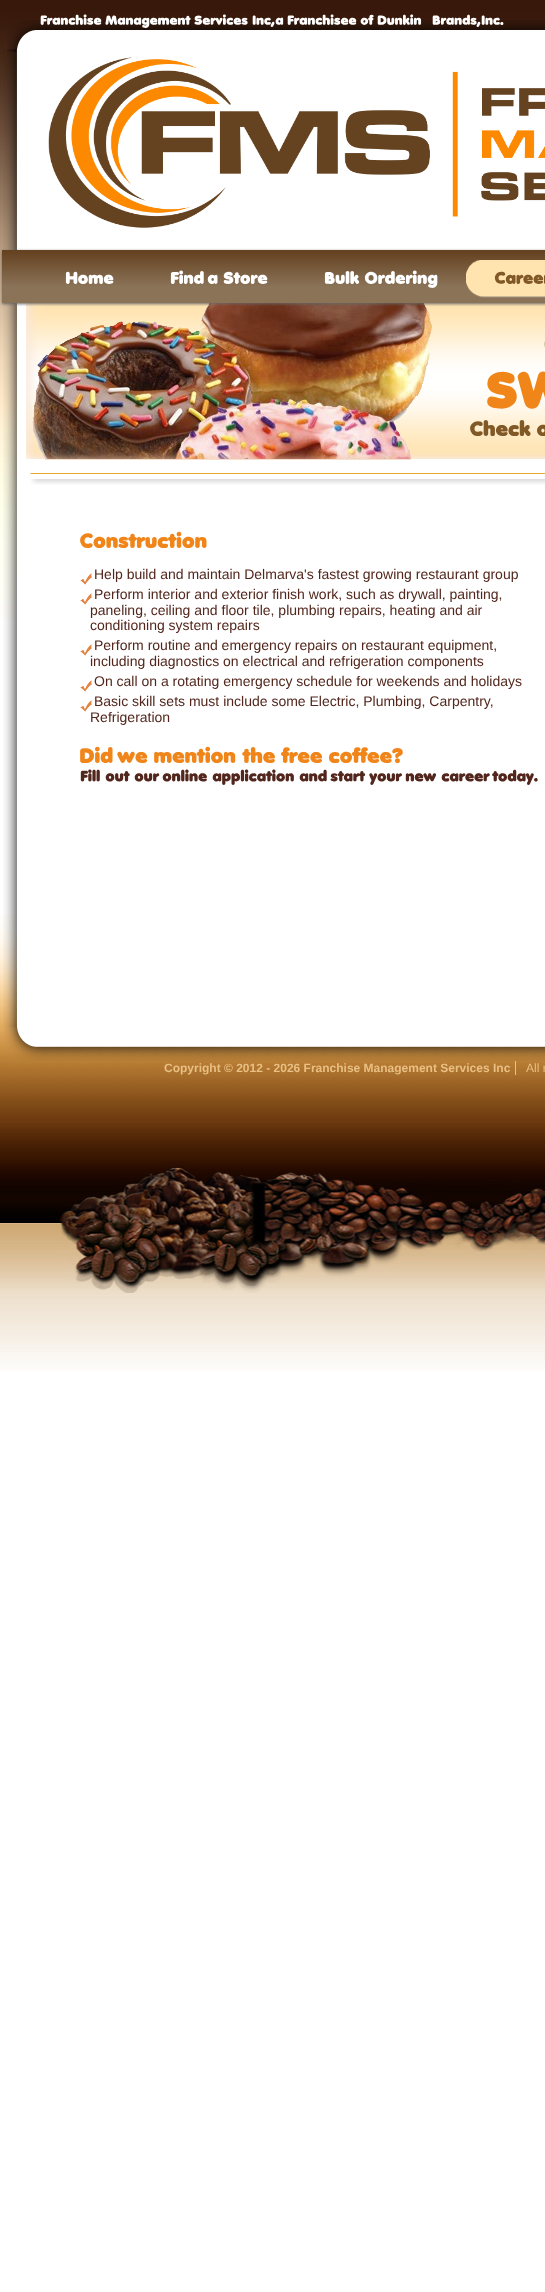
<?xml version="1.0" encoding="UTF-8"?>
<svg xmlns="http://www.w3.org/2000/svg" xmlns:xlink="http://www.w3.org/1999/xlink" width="545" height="2292">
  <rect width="100%" height="100%" fill="#ffffff" />
  <image x="0" y="0" width="545" height="618" xlink:href="image1.png" />
  <image x="7" y="20" width="538" height="32" xlink:href="image12.png" />
  <image x="40" y="14" width="62" height="11" xlink:href="image2.png" />
  <image x="105" y="15" width="86" height="13" xlink:href="image3.png" />
  <image x="194" y="14" width="54" height="11" xlink:href="image4.png" />
  <image x="252" y="15" width="23" height="12" xlink:href="image5.png" />
  <image x="275" y="17" width="9" height="8" xlink:href="image6.png" />
  <image x="287" y="14" width="70" height="11" xlink:href="image7.png" />
  <image x="360" y="14" width="14" height="11" xlink:href="image8.png" />
  <image x="377" y="14" width="45" height="11" xlink:href="image9.png" />
  <image x="432" y="14" width="49" height="13" xlink:href="image10.png" />
  <image x="481" y="15" width="23" height="10" xlink:href="image11.png" />
  <image x="0" y="915" width="545" height="456" xlink:href="image52.png" />
  <image x="3" y="49" width="542" height="978" xlink:href="image13.png" />
  <image x="48" y="57" width="497" height="171" xlink:href="image14.png" />
  <image x="26" y="303" width="519" height="156" xlink:href="image25.png" />
  <image x="32" y="303" width="400" height="157" xlink:href="image26.png" />
  <rect x="2" y="251" width="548" height="53" fill="#666666" filter="blur(1.5px)" />
  <image x="2" y="250" width="543" height="53" xlink:href="image15.png" />
  <image x="65" y="271" width="49" height="13" xlink:href="image16.png" />
  <image x="170" y="270" width="34" height="14" xlink:href="image17.png" />
  <image x="207" y="274" width="11" height="10" xlink:href="image18.png" />
  <image x="223" y="271" width="45" height="13" xlink:href="image19.png" />
  <image x="324" y="271" width="36" height="13" xlink:href="image20.png" />
  <image x="364" y="270" width="74" height="18" xlink:href="image21.png" />
  <image x="466" y="260" width="18" height="38" xlink:href="image22.png" />
  <image x="484" y="260" width="61" height="38" xlink:href="image23.png" />
  <image x="494" y="271" width="51" height="13" xlink:href="image24.png" />
  <image x="544" y="341" width="1" height="6" xlink:href="image27.png" />
  <image x="487" y="371" width="58" height="38" xlink:href="image28.png" />
  <image x="470" y="420" width="61" height="16" xlink:href="image29.png" />
  <image x="537" y="424" width="8" height="12" xlink:href="image30.png" />
  <image x="30" y="473" width="515" height="12" xlink:href="image31.png" />
  <image x="80" y="531" width="127" height="17" xlink:href="image32.png" />
  <image x="80" y="573" width="12" height="12" xlink:href="image33.png" />
  <image x="80" y="593" width="12" height="12" xlink:href="image33.png" />
  <image x="80" y="644" width="12" height="12" xlink:href="image33.png" />
  <image x="80" y="680" width="12" height="12" xlink:href="image33.png" />
  <image x="80" y="700" width="12" height="12" xlink:href="image33.png" />
  <image x="80" y="746" width="33" height="17" xlink:href="image34.png" />
  <image x="117" y="751" width="31" height="12" xlink:href="image35.png" />
  <image x="154" y="746" width="82" height="17" xlink:href="image36.png" />
  <image x="242" y="747" width="33" height="16" xlink:href="image37.png" />
  <image x="281" y="747" width="41" height="16" xlink:href="image38.png" />
  <image x="329" y="747" width="74" height="17" xlink:href="image39.png" />
  <image x="80" y="769" width="20" height="13" xlink:href="image40.png" />
  <image x="105" y="771" width="25" height="11" xlink:href="image41.png" />
  <image x="134" y="773" width="26" height="9" xlink:href="image42.png" />
  <image x="162" y="769" width="45" height="13" xlink:href="image43.png" />
  <image x="212" y="769" width="82" height="16" xlink:href="image44.png" />
  <image x="299" y="769" width="28" height="13" xlink:href="image45.png" />
  <image x="330" y="771" width="36" height="11" xlink:href="image46.png" />
  <image x="369" y="773" width="33" height="12" xlink:href="image47.png" />
  <image x="405" y="773" width="31" height="9" xlink:href="image48.png" />
  <image x="441" y="773" width="49" height="9" xlink:href="image49.png" />
  <image x="492" y="769" width="46" height="16" xlink:href="image50.png" />
  <image x="4" y="1027" width="541" height="34" xlink:href="image51.png" />
  <image x="56" y="1162" width="489" height="131" xlink:href="image53.png" />
  <rect x="515" y="1061" width="1" height="14" fill="#e9bf83" />
  <text x="94" y="579" style="font-family: Liberation Sans; font-size: 14px; fill: #52261c">Help build and maintain Delmarva's fastest growing restaurant group</text>
  <text x="94" y="599" style="font-family: Liberation Sans; font-size: 14px; fill: #52261c">Perform interior and exterior finish work, such as drywall, painting,</text>
  <text x="90" y="615" style="font-family: Liberation Sans; font-size: 14px; fill: #52261c">paneling, ceiling and floor tile, plumbing repairs, heating and air</text>
  <text x="90" y="630" style="font-family: Liberation Sans; font-size: 14px; fill: #52261c">conditioning system repairs</text>
  <text x="94" y="650" style="font-family: Liberation Sans; font-size: 14px; fill: #52261c">Perform routine and emergency repairs on restaurant equipment,</text>
  <text x="90" y="666" style="font-family: Liberation Sans; font-size: 14px; fill: #52261c">including diagnostics on electrical and refrigeration components</text>
  <text x="94" y="686" style="font-family: Liberation Sans; font-size: 14px; fill: #52261c">On call on a rotating emergency schedule for weekends and holidays</text>
  <text x="94" y="706" style="font-family: Liberation Sans; font-size: 14px; fill: #52261c">Basic skill sets must include some Electric, Plumbing, Carpentry,</text>
  <text x="90" y="722" style="font-family: Liberation Sans; font-size: 14px; fill: #52261c">Refrigeration</text>
  <text x="164" y="1072" style="font-family: Liberation Sans; font-size: 12px; font-weight: bold; fill: #e9bf83">Copyright © 2012 - 2026 Franchise Management Services Inc</text>
  <text x="526" y="1072" style="font-family: Liberation Sans; font-size: 12px; fill: #e9bf83">All r</text>
</svg>
